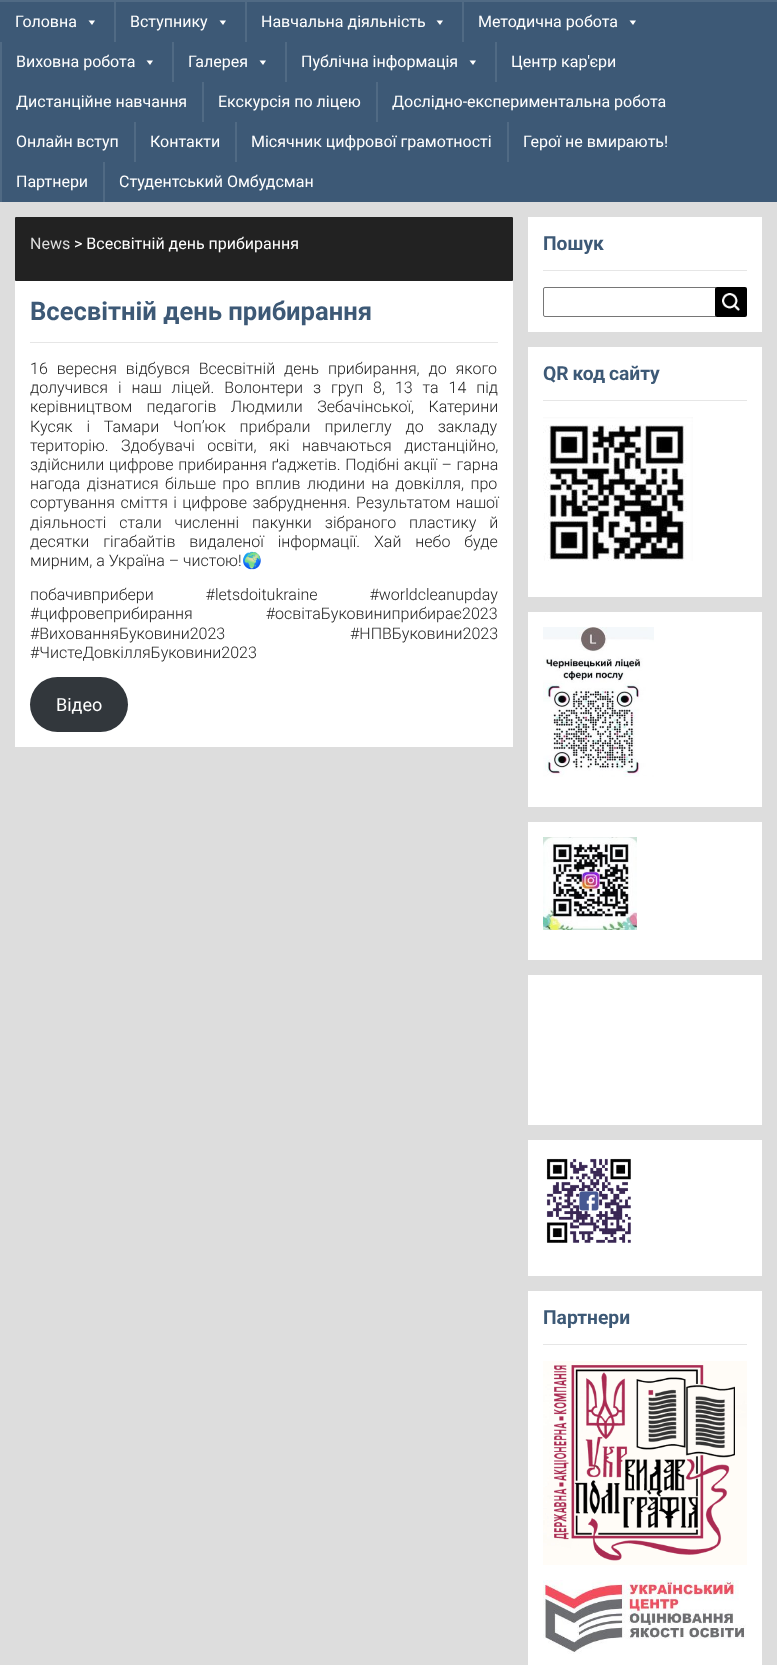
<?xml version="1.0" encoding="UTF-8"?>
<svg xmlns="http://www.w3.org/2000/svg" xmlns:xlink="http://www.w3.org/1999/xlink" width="777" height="1665">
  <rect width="100%" height="100%" fill="#dddddd" />
  <rect width="777" height="2" fill="#506a84" />
  <rect y="2" width="777" height="200" fill="#3d5976" />
  <path d="M 95 20.5 l -3 4.5 l -3.5 -4.5 z" fill="#ffffff" />
  <rect x="114" y="2" width="2" height="40" fill="#506a84" />
  <path d="M 226 20.5 l -3 4.5 l -3.5 -4.5 z" fill="#ffffff" />
  <rect x="245" y="2" width="2" height="40" fill="#506a84" />
  <path d="M 443 20.5 l -3 4.5 l -3.5 -4.5 z" fill="#ffffff" />
  <rect x="462" y="2" width="2" height="40" fill="#506a84" />
  <path d="M 636 20.5 l -3 4.5 l -3.5 -4.5 z" fill="#ffffff" />
  <rect y="42" width="2" height="40" fill="#506a84" />
  <path d="M 153 60.5 l -3 4.5 l -3.5 -4.5 z" fill="#ffffff" />
  <rect x="172" y="42" width="2" height="40" fill="#506a84" />
  <path d="M 266 60.5 l -3 4.5 l -3.5 -4.5 z" fill="#ffffff" />
  <rect x="285" y="42" width="2" height="40" fill="#506a84" />
  <path d="M 476 60.5 l -3 4.5 l -3.5 -4.5 z" fill="#ffffff" />
  <rect x="495" y="42" width="2" height="40" fill="#506a84" />
  <rect y="82" width="2" height="40" fill="#506a84" />
  <rect x="202" y="82" width="2" height="40" fill="#506a84" />
  <rect x="376" y="82" width="2" height="40" fill="#506a84" />
  <rect y="122" width="2" height="40" fill="#506a84" />
  <rect x="134" y="122" width="2" height="40" fill="#506a84" />
  <rect x="235" y="122" width="2" height="40" fill="#506a84" />
  <rect x="507" y="122" width="2" height="40" fill="#506a84" />
  <rect y="162" width="2" height="40" fill="#506a84" />
  <rect x="103" y="162" width="2" height="40" fill="#506a84" />
  <rect x="15" y="217" width="498" height="530" fill="#ffffff" />
  <rect x="15" y="217" width="498" height="64" rx="1" fill="#222222" />
  <rect x="30" y="342" width="468" height="1" fill="#e6e6e6" />
  <rect x="30" y="677" width="98" height="55" rx="27.5" fill="#32373c" />
  <rect x="528" y="217" width="234" height="115" fill="#ffffff" />
  <rect x="543" y="270" width="204" height="1" fill="#e6e6e6" />
  <rect x="543.5" y="287.5" width="173" height="29" rx="1.5" fill="none" stroke="#767676" />
  <rect x="715" y="287" width="32" height="30" rx="2" fill="#000000" />
  <image x="722" y="293" width="18" height="18" xlink:href="image1.png" />
  <rect x="528" y="347" width="234" height="250" fill="#ffffff" />
  <rect x="543" y="400" width="204" height="1" fill="#e6e6e6" />
  <image x="543" y="417" width="150" height="144" xlink:href="image2.png" />
  <rect x="528" y="612" width="234" height="195" fill="#ffffff" />
  <image x="543" y="627" width="111" height="150" xlink:href="image3.png" />
  <rect x="528" y="822" width="234" height="138" fill="#ffffff" />
  <image x="543" y="837" width="94" height="93" xlink:href="image4.png" />
  <rect x="528" y="975" width="234" height="150" fill="#ffffff" />
  <rect x="528" y="1140" width="234" height="136" fill="#ffffff" />
  <image x="546" y="1158" width="85" height="85" xlink:href="image5.png" />
  <rect x="528" y="1291" width="234" height="374" fill="#ffffff" />
  <rect x="543" y="1344" width="204" height="1" fill="#e6e6e6" />
  <image x="543" y="1361" width="204" height="204" xlink:href="image6.png" />
  <image x="543" y="1580" width="203" height="74" xlink:href="image7.png" />
  <text x="15" y="27" style="font-family: Roboto; font-size: 16px; fill: #ffffff">Головна</text>
  <text x="130" y="27" style="font-family: Roboto; font-size: 16px; fill: #ffffff">Вступнику</text>
  <text x="261" y="27" style="font-family: Roboto; font-size: 16px; fill: #ffffff">Навчальна діяльність</text>
  <text x="478" y="27" style="font-family: Roboto; font-size: 16px; fill: #ffffff">Методична робота</text>
  <text x="16" y="67" style="font-family: Roboto; font-size: 16px; fill: #ffffff">Виховна робота</text>
  <text x="188" y="67" style="font-family: Roboto; font-size: 16px; fill: #ffffff">Галерея</text>
  <text x="301" y="67" style="font-family: Roboto; font-size: 16px; fill: #ffffff">Публічна інформація</text>
  <text x="511" y="67" style="font-family: Roboto; font-size: 16px; fill: #ffffff">Центр кар'єри</text>
  <text x="16" y="107" style="font-family: Roboto; font-size: 16px; fill: #ffffff">Дистанційне навчання</text>
  <text x="218" y="107" style="font-family: Roboto; font-size: 16px; fill: #ffffff">Екскурсія по ліцею</text>
  <text x="392" y="107" style="font-family: Roboto; font-size: 16px; fill: #ffffff">Дослідно-експериментальна робота</text>
  <text x="16" y="147" style="font-family: Roboto; font-size: 16px; fill: #ffffff">Онлайн вступ</text>
  <text x="150" y="147" style="font-family: Roboto; font-size: 16px; fill: #ffffff">Контакти</text>
  <text x="251" y="147" style="font-family: Roboto; font-size: 16px; fill: #ffffff">Місячник цифрової грамотності</text>
  <text x="523" y="147" style="font-family: Roboto; font-size: 16px; fill: #ffffff">Герої не вмирають!</text>
  <text x="16" y="187" style="font-family: Roboto; font-size: 16px; fill: #ffffff">Партнери</text>
  <text x="119" y="187" style="font-family: Roboto; font-size: 16px; fill: #ffffff">Студентський Омбудсман</text>
  <text x="30" y="249" style="font-family: Roboto; font-size: 16px; fill: #dddddd">News</text>
  <text x="74" y="249" style="font-family: Roboto; font-size: 16px; fill: #ffffff">&gt; Всесвітній день прибирання</text>
  <text x="30" y="320" style="font-family: Roboto; font-size: 25.6px; font-weight: bold; fill: #3d5976">Всесвітній день прибирання</text>
  <text x="30" y="374" word-spacing="5" style="font-family: Roboto; font-size: 16px; font-weight: 300; fill: #222222">16 вересня відбувся Всесвітній день прибирання, до якого</text>
  <text x="30" y="393" word-spacing="6" style="font-family: Roboto; font-size: 16px; font-weight: 300; fill: #222222">долучився і наш ліцей. Волонтери з груп 8, 13 та 14 під</text>
  <text x="30" y="412" word-spacing="10.5" style="font-family: Roboto; font-size: 16px; font-weight: 300; fill: #222222">керівництвом педагогів Людмили Зебачінської, Катерини</text>
  <text x="30" y="432" word-spacing="10" style="font-family: Roboto; font-size: 16px; font-weight: 300; fill: #222222">Кусяк і Тамари Чоп’юк прибрали прилеглу до закладу</text>
  <text x="30" y="451" word-spacing="8.5" style="font-family: Roboto; font-size: 16px; font-weight: 300; fill: #222222">територію. Здобувачі освіти, які навчаються дистанційно,</text>
  <text x="30" y="470" word-spacing="0.75" style="font-family: Roboto; font-size: 16px; font-weight: 300; fill: #222222">здійснили цифрове прибирання ґаджетів. Подібні акції – гарна</text>
  <text x="30" y="489" word-spacing="2.5" style="font-family: Roboto; font-size: 16px; font-weight: 300; fill: #222222">нагода дізнатися більше про вплив людини на довкілля, про</text>
  <text x="30" y="508" word-spacing="1.5" style="font-family: Roboto; font-size: 16px; font-weight: 300; fill: #222222">сортування сміття і цифрове забруднення. Результатом нашої</text>
  <text x="30" y="528" word-spacing="9" style="font-family: Roboto; font-size: 16px; font-weight: 300; fill: #222222">діяльності стали численні пакунки зібраного пластику й</text>
  <text x="30" y="547" word-spacing="10" style="font-family: Roboto; font-size: 16px; font-weight: 300; fill: #222222">десятки гігабайтів видаленої інформації. Хай небо буде</text>
  <text x="30" y="566" style="font-family: Roboto; font-size: 16px; font-weight: 300; fill: #222222">мирним, а Україна – чистою!</text>
  <text x="242" y="566" style="font-family: Noto Color Emoji; font-size: 16px; fill: #222222">🌍</text>
  <text x="30" y="600" word-spacing="48" style="font-family: Roboto; font-size: 16px; font-weight: 300; fill: #222222">побачивприбери #letsdoitukraine #worldcleanupday</text>
  <text x="30" y="619" word-spacing="69" style="font-family: Roboto; font-size: 16px; font-weight: 300; fill: #222222">#цифровеприбирання #освітаБуковиниприбирає2023</text>
  <text x="30" y="639" word-spacing="121" style="font-family: Roboto; font-size: 16px; font-weight: 300; fill: #222222">#ВихованняБуковини2023 #НПВБуковини2023</text>
  <text x="30" y="658" style="font-family: Roboto; font-size: 16px; font-weight: 300; fill: #222222">#ЧистеДовкілляБуковини2023</text>
  <text x="56" y="711" style="font-family: Roboto; font-size: 18px; fill: #ffffff">Відео</text>
  <text x="543" y="250" style="font-family: Roboto; font-size: 19.25px; font-weight: bold; fill: #3d5976">Пошук</text>
  <text x="543" y="380" word-spacing="-1" style="font-family: Roboto; font-size: 19.25px; font-weight: bold; fill: #3d5976">QR код сайту</text>
  <text x="543" y="1324" style="font-family: Roboto; font-size: 19.25px; font-weight: bold; fill: #3d5976">Партнери</text>
</svg>
